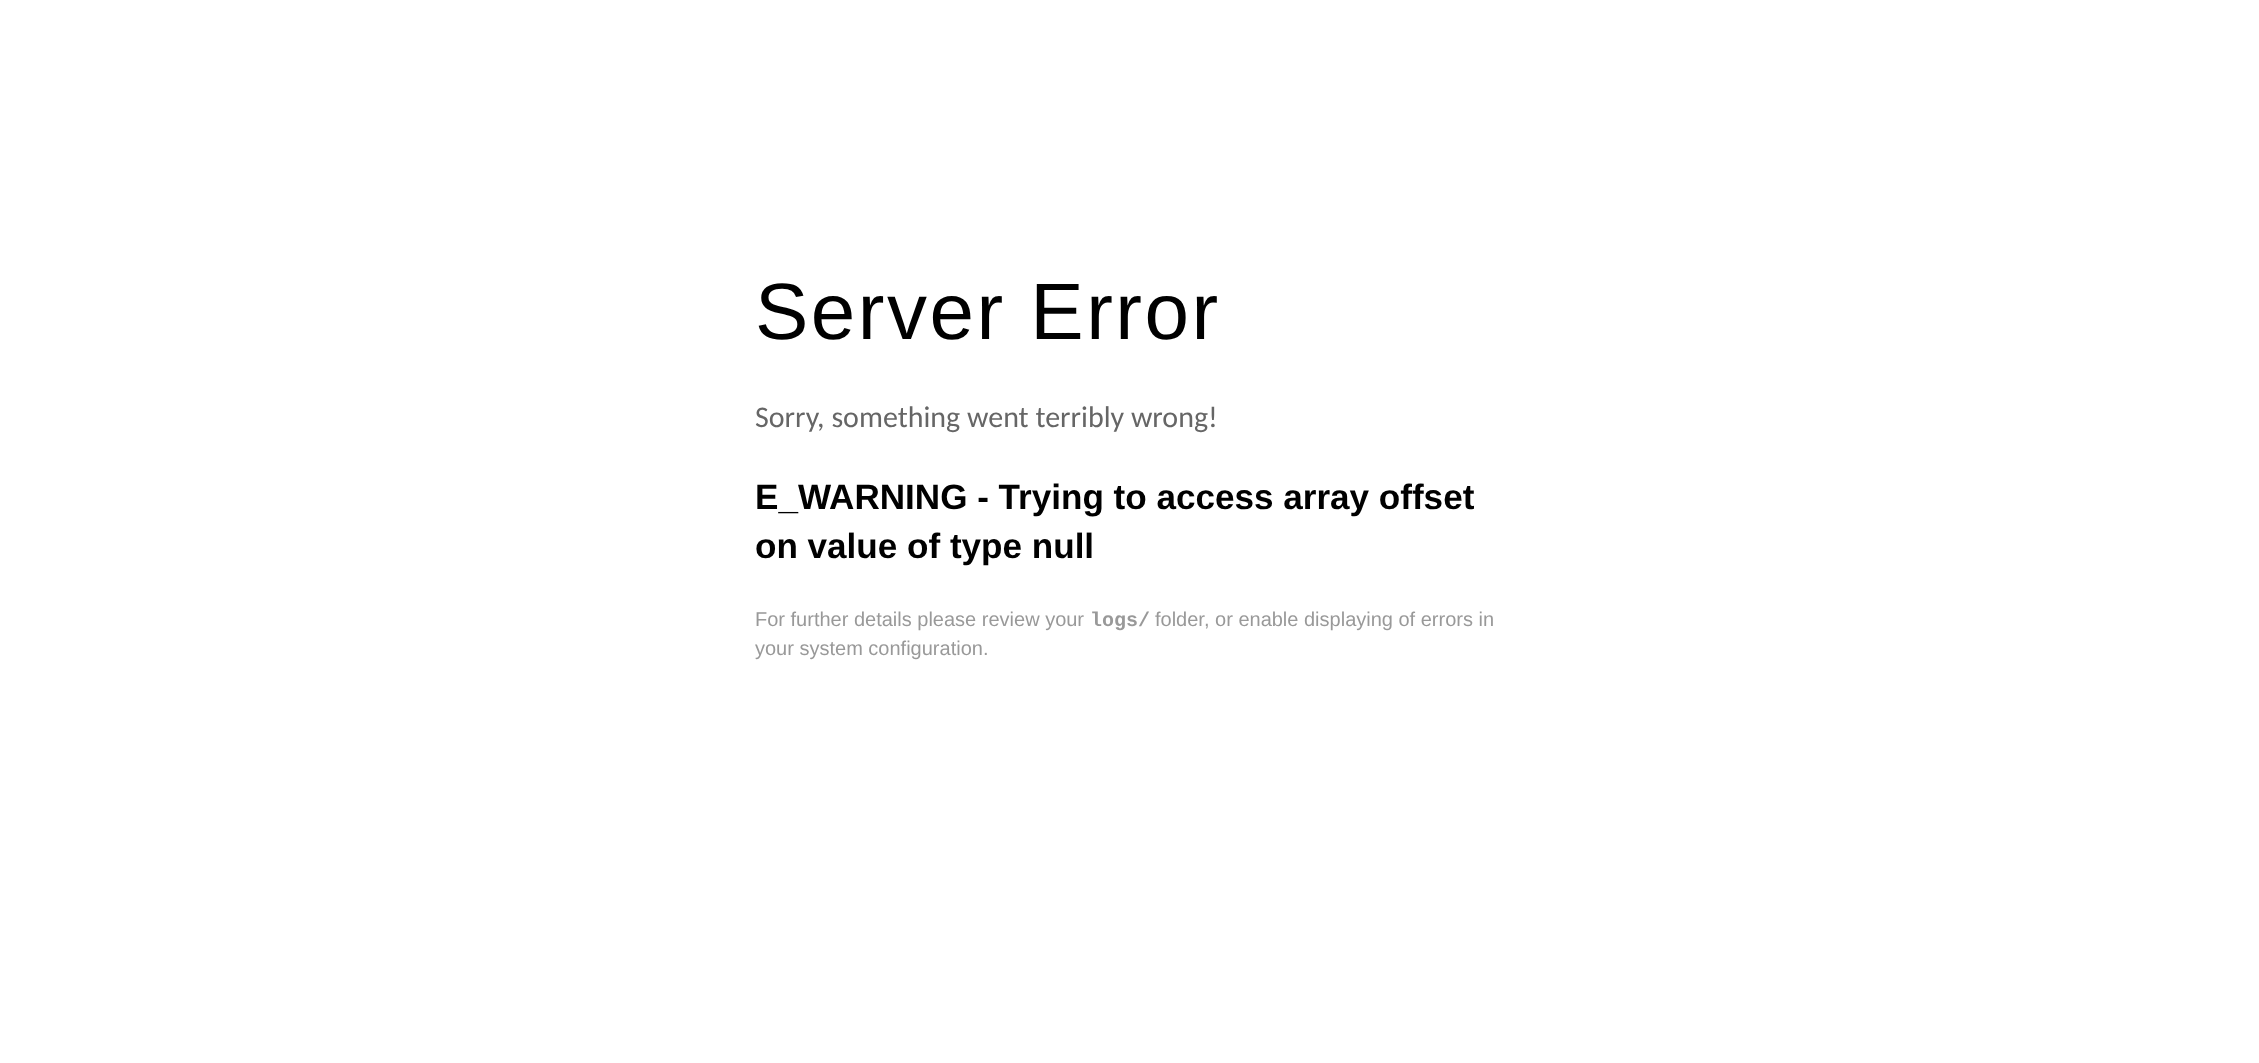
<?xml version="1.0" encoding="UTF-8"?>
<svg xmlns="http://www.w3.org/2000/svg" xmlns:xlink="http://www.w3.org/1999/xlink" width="2259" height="1063">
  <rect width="100%" height="100%" fill="#ffffff" />
  <text x="755" y="339" style="font-family: Liberation Sans; font-size: 80px; letter-spacing: 2.5px; fill: #000000">Server Error</text>
  <text x="755" y="427" style="font-family: Carlito; font-size: 30px; fill: #666666">Sorry, something went terribly wrong!</text>
  <text x="755" y="509" style="font-family: Liberation Sans; font-size: 35.1px; font-weight: bold; fill: #000000">E_WARNING - Trying to access array offset</text>
  <text x="755" y="558" style="font-family: Liberation Sans; font-size: 35.1px; font-weight: bold; fill: #000000">on value of type null</text>
  <text x="755" y="626" style="font-family: Liberation Sans; font-size: 20px; fill: #999999">For further details please review your</text>
  <text x="1090" y="626" style="font-family: Liberation Mono; font-size: 20px; font-weight: bold; fill: #999999">logs/</text>
  <text x="1155" y="626" style="font-family: Liberation Sans; font-size: 20px; fill: #999999">folder, or enable displaying of errors in</text>
  <text x="755" y="655" style="font-family: Liberation Sans; font-size: 20px; fill: #999999">your system configuration.</text>
</svg>
